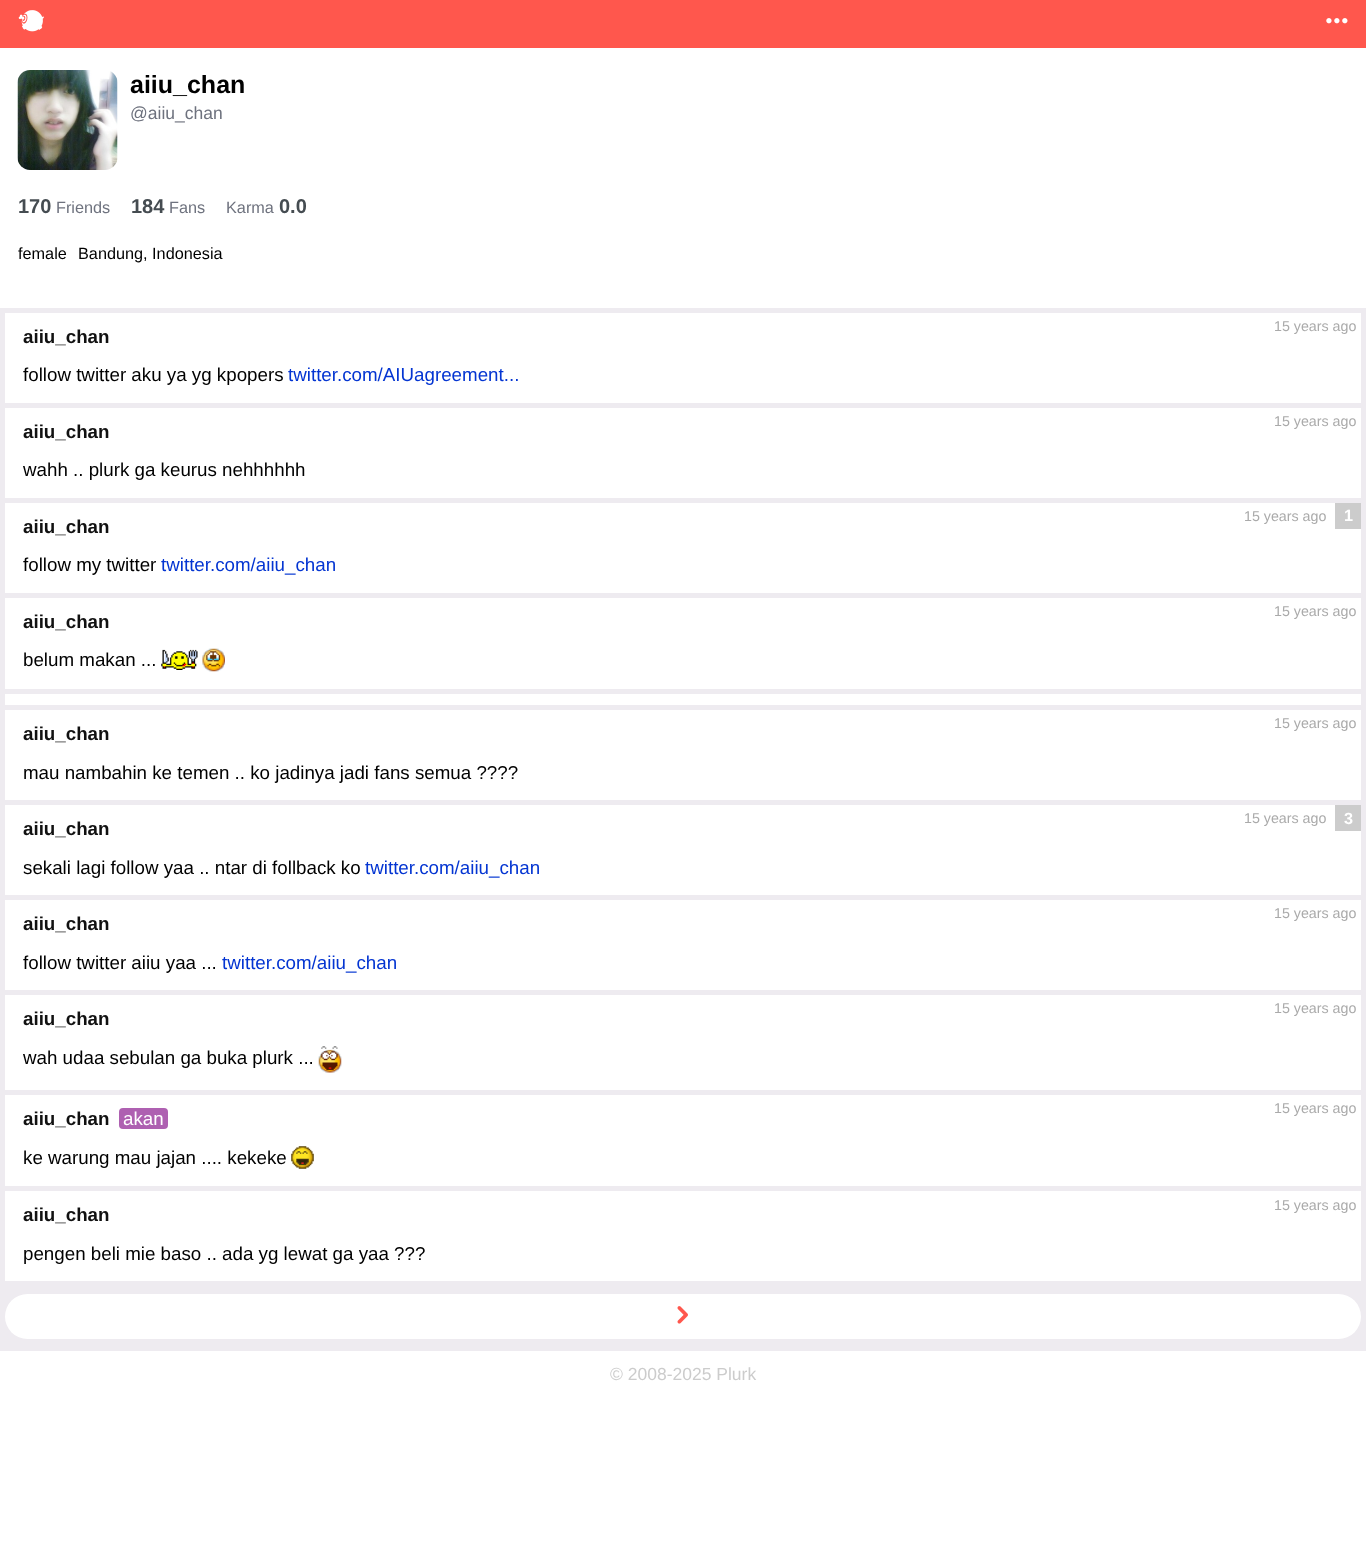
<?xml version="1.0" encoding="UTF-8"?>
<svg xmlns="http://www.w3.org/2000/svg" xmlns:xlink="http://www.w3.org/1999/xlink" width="1366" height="1544">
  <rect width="100%" height="100%" fill="#ffffff" />
  <rect width="1366" height="48" fill="#ff574d" />
  <image x="18" y="10" width="26" height="22" xlink:href="image1.png" />
  <image x="1326" y="18" width="22" height="6" xlink:href="image2.png" />
  <image x="17" y="70" width="101" height="100" xlink:href="image3.png" />
  <rect y="308" width="1366" height="1043" fill="#eeebf0" />
  <rect x="5" y="313" width="1356" height="90" fill="#ffffff" />
  <rect x="5" y="408" width="1356" height="90" fill="#ffffff" />
  <rect x="5" y="503" width="1356" height="90" fill="#ffffff" />
  <rect x="1335" y="503" width="26" height="26" fill="#cccccc" />
  <rect x="5" y="598" width="1356" height="91" fill="#ffffff" />
  <image x="161" y="649" width="37" height="21" xlink:href="image4.png" />
  <image x="202" y="648" width="23" height="24" xlink:href="image5.png" />
  <rect x="5" y="694" width="1356" height="11" fill="#ffffff" />
  <rect x="5" y="710" width="1356" height="90" fill="#ffffff" />
  <rect x="5" y="805" width="1356" height="90" fill="#ffffff" />
  <rect x="1335" y="805" width="26" height="26" fill="#cccccc" />
  <rect x="5" y="900" width="1356" height="90" fill="#ffffff" />
  <rect x="5" y="995" width="1356" height="95" fill="#ffffff" />
  <image x="318" y="1046" width="24" height="27" xlink:href="image6.png" />
  <rect x="5" y="1095" width="1356" height="91" fill="#ffffff" />
  <rect x="119" y="1108" width="49" height="21" rx="4" fill="#ae60b1" />
  <image x="291" y="1146" width="23" height="23" xlink:href="image7.png" />
  <rect x="5" y="1191" width="1356" height="90" fill="#ffffff" />
  <rect x="5" y="1294" width="1356" height="45" rx="22.5" fill="#ffffff" />
  <image x="677" y="1306" width="11" height="18" xlink:href="image8.png" />
  <text x="130" y="93" style="font-family: Liberation Sans; font-size: 25px; font-weight: bold; fill: #000000">aiiu_chan</text>
  <text x="130" y="119" style="font-family: Liberation Sans; font-size: 17.5px; fill: #6e727e">@aiiu_chan</text>
  <text x="18" y="213" style="font-family: Liberation Sans; font-size: 20px; font-weight: bold; fill: #454c51">170</text>
  <text x="56" y="213" style="font-family: Liberation Sans; font-size: 16.25px; fill: #6e727e">Friends</text>
  <text x="131" y="213" style="font-family: Liberation Sans; font-size: 20px; font-weight: bold; fill: #454c51">184</text>
  <text x="169" y="213" style="font-family: Liberation Sans; font-size: 16.25px; fill: #6e727e">Fans</text>
  <text x="226" y="213" style="font-family: Liberation Sans; font-size: 16.25px; fill: #6e727e">Karma</text>
  <text x="279" y="213" style="font-family: Liberation Sans; font-size: 20px; font-weight: bold; fill: #454c51">0.0</text>
  <text x="18" y="259" style="font-family: Liberation Sans; font-size: 16.25px; fill: #000000">female</text>
  <text x="78" y="259" style="font-family: Liberation Sans; font-size: 16.25px; fill: #000000">Bandung, Indonesia</text>
  <text x="1274" y="331" style="font-family: Liberation Sans; font-size: 14.25px; fill: #aaaaaa">15 years ago</text>
  <text x="23" y="343" style="font-family: Liberation Sans; font-size: 18.75px; font-weight: bold; fill: #111111">aiiu_chan</text>
  <text x="23" y="381" style="font-family: Liberation Sans; font-size: 18.75px; fill: #000000">follow twitter aku ya yg kpopers</text>
  <text x="288" y="381" style="font-family: Liberation Sans; font-size: 18.75px; fill: #0435d2">twitter.com/AIUagreement...</text>
  <text x="1274" y="426" style="font-family: Liberation Sans; font-size: 14.25px; fill: #aaaaaa">15 years ago</text>
  <text x="23" y="438" style="font-family: Liberation Sans; font-size: 18.75px; font-weight: bold; fill: #111111">aiiu_chan</text>
  <text x="23" y="476" style="font-family: Liberation Sans; font-size: 18.75px; fill: #000000">wahh .. plurk ga keurus nehhhhhh</text>
  <text x="1244" y="521" style="font-family: Liberation Sans; font-size: 14.25px; fill: #aaaaaa">15 years ago</text>
  <text x="1344" y="521" style="font-family: Liberation Sans; font-size: 16.25px; font-weight: bold; fill: #ffffff">1</text>
  <text x="23" y="533" style="font-family: Liberation Sans; font-size: 18.75px; font-weight: bold; fill: #111111">aiiu_chan</text>
  <text x="23" y="571" style="font-family: Liberation Sans; font-size: 18.75px; fill: #000000">follow my twitter</text>
  <text x="161" y="571" style="font-family: Liberation Sans; font-size: 18.75px; fill: #0435d2">twitter.com/aiiu_chan</text>
  <text x="1274" y="616" style="font-family: Liberation Sans; font-size: 14.25px; fill: #aaaaaa">15 years ago</text>
  <text x="23" y="628" style="font-family: Liberation Sans; font-size: 18.75px; font-weight: bold; fill: #111111">aiiu_chan</text>
  <text x="23" y="666" style="font-family: Liberation Sans; font-size: 18.75px; fill: #000000">belum makan ...</text>
  <text x="1274" y="728" style="font-family: Liberation Sans; font-size: 14.25px; fill: #aaaaaa">15 years ago</text>
  <text x="23" y="740" style="font-family: Liberation Sans; font-size: 18.75px; font-weight: bold; fill: #111111">aiiu_chan</text>
  <text x="23" y="779" style="font-family: Liberation Sans; font-size: 18.75px; fill: #000000">mau nambahin ke temen .. ko jadinya jadi fans semua ????</text>
  <text x="1244" y="823" style="font-family: Liberation Sans; font-size: 14.25px; fill: #aaaaaa">15 years ago</text>
  <text x="1344" y="824" style="font-family: Liberation Sans; font-size: 16.25px; font-weight: bold; fill: #ffffff">3</text>
  <text x="23" y="835" style="font-family: Liberation Sans; font-size: 18.75px; font-weight: bold; fill: #111111">aiiu_chan</text>
  <text x="23" y="874" style="font-family: Liberation Sans; font-size: 18.75px; fill: #000000">sekali lagi follow yaa .. ntar di follback ko</text>
  <text x="365" y="874" style="font-family: Liberation Sans; font-size: 18.75px; fill: #0435d2">twitter.com/aiiu_chan</text>
  <text x="1274" y="918" style="font-family: Liberation Sans; font-size: 14.25px; fill: #aaaaaa">15 years ago</text>
  <text x="23" y="930" style="font-family: Liberation Sans; font-size: 18.75px; font-weight: bold; fill: #111111">aiiu_chan</text>
  <text x="23" y="969" style="font-family: Liberation Sans; font-size: 18.75px; fill: #000000">follow twitter aiiu yaa ...</text>
  <text x="222" y="969" style="font-family: Liberation Sans; font-size: 18.75px; fill: #0435d2">twitter.com/aiiu_chan</text>
  <text x="1274" y="1013" style="font-family: Liberation Sans; font-size: 14.25px; fill: #aaaaaa">15 years ago</text>
  <text x="23" y="1025" style="font-family: Liberation Sans; font-size: 18.75px; font-weight: bold; fill: #111111">aiiu_chan</text>
  <text x="23" y="1064" style="font-family: Liberation Sans; font-size: 18.75px; fill: #000000">wah udaa sebulan ga buka plurk ...</text>
  <text x="1274" y="1113" style="font-family: Liberation Sans; font-size: 14.25px; fill: #aaaaaa">15 years ago</text>
  <text x="23" y="1125" style="font-family: Liberation Sans; font-size: 18.75px; font-weight: bold; fill: #111111">aiiu_chan</text>
  <text x="123" y="1125" style="font-family: Liberation Sans; font-size: 18.75px; fill: #ffffff">akan</text>
  <text x="23" y="1164" style="font-family: Liberation Sans; font-size: 18.75px; fill: #000000">ke warung mau jajan .... kekeke</text>
  <text x="23" y="1221" style="font-family: Liberation Sans; font-size: 18.75px; font-weight: bold; fill: #111111">aiiu_chan</text>
  <text x="1274" y="1210" style="font-family: Liberation Sans; font-size: 14.25px; fill: #aaaaaa">15 years ago</text>
  <text x="23" y="1260" style="font-family: Liberation Sans; font-size: 18.75px; fill: #000000">pengen beli mie baso .. ada yg lewat ga yaa ???</text>
  <text x="610" y="1380" style="font-family: Liberation Sans; font-size: 17.5px; fill: #cccccc">© 2008-2025 Plurk</text>
</svg>
